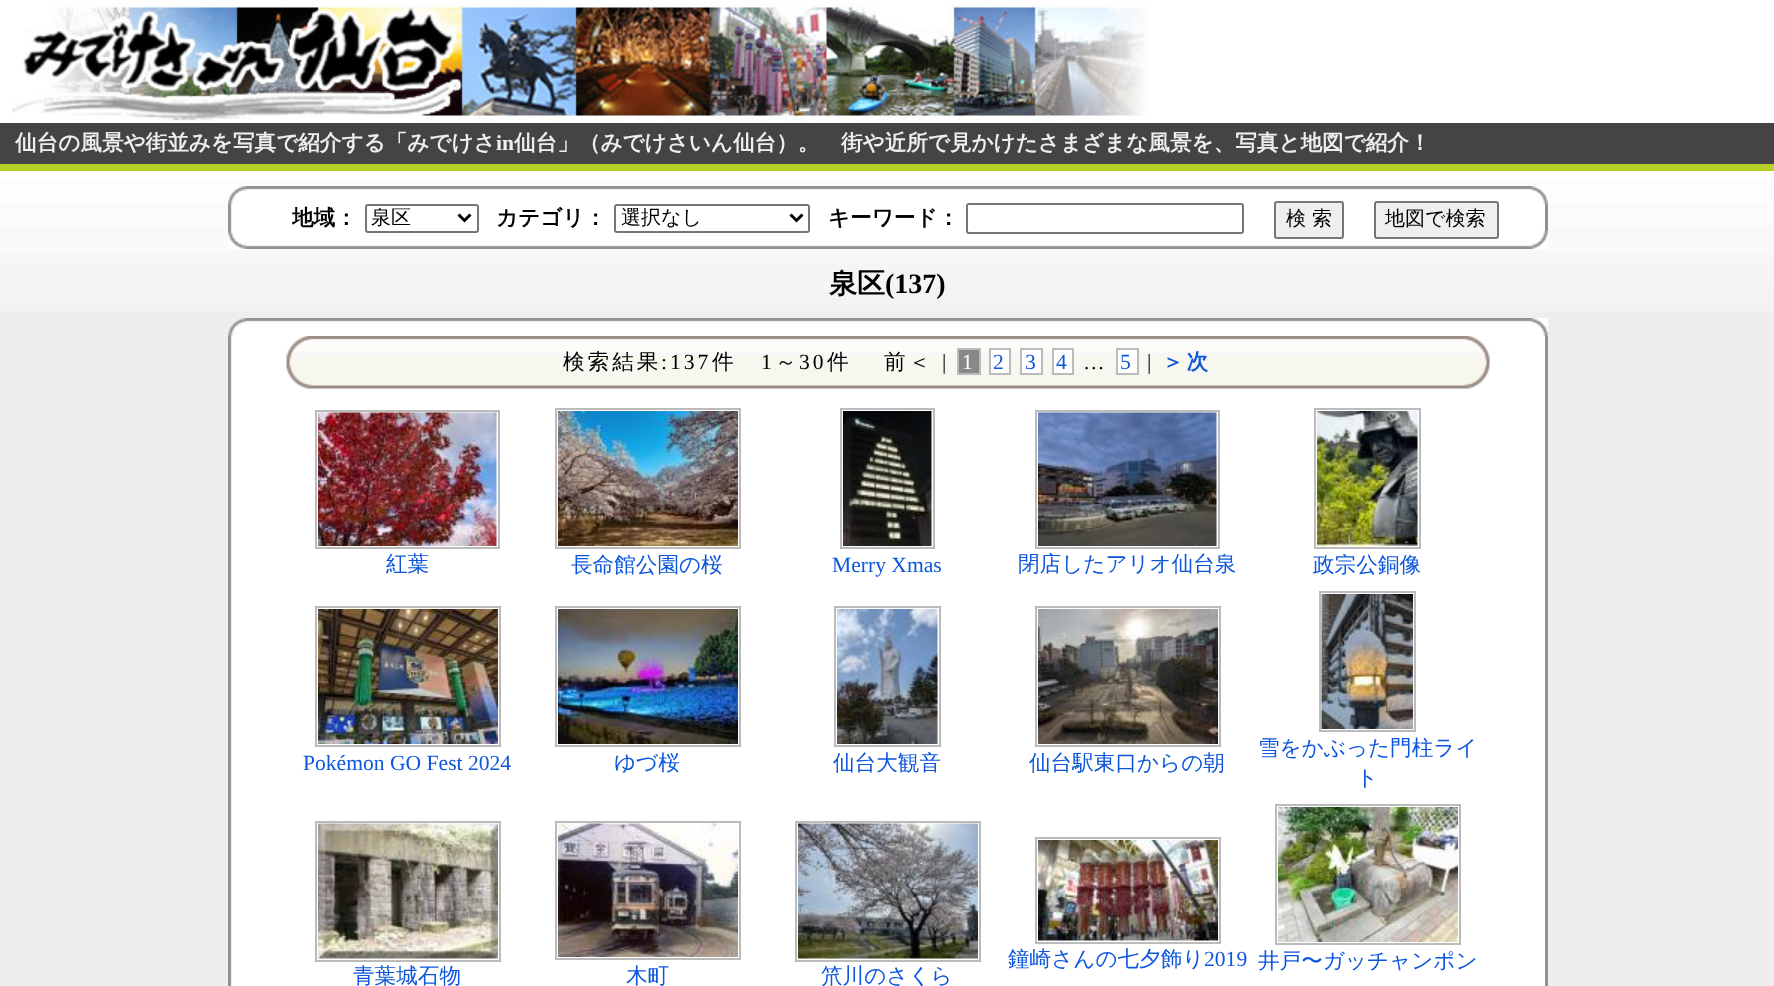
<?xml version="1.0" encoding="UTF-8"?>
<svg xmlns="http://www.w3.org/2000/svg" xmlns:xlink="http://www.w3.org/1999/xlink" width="1774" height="986">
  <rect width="100%" height="100%" fill="#eeeeee" />
  <image x="0" y="0" width="1774" height="311" xlink:href="image1.png" />
  <image x="12" y="4" width="1136" height="119" xlink:href="image2.png" />
  <rect y="123" width="1774" height="41" fill="#444444" />
  <rect y="164" width="1774" height="7" fill="#b7d029" />
  <image x="228" y="186" width="1317" height="46" xlink:href="image3.png" />
  <image x="1531" y="186" width="17" height="18" xlink:href="image4.png" />
  <rect x="1545" y="204" width="3" height="27" fill="#919191" />
  <image x="228" y="232" width="1303" height="17" xlink:href="image5.png" />
  <rect x="366" y="205" width="112" height="27" rx="2" fill="none" stroke="#767676" stroke-width="2" />
  <path d="M 458.5 214.5 l 6 6 l 6 -6" fill="none" stroke="#000000" stroke-width="3" />
  <rect x="615" y="205" width="194" height="27" rx="2" fill="none" stroke="#767676" stroke-width="2" />
  <path d="M 790.5 214.5 l 6 6 l 6 -6" fill="none" stroke="#000000" stroke-width="3" />
  <rect x="967" y="204" width="276" height="29" rx="2" fill="none" stroke="#767676" stroke-width="2" />
  <rect x="1275" y="202" width="68" height="36" rx="2" fill="#efefef" stroke="#767676" stroke-width="2" />
  <rect x="1375" y="202" width="123" height="36" rx="2" fill="#efefef" stroke="#767676" stroke-width="2" />
  <image x="1531" y="231" width="17" height="18" xlink:href="image6.png" />
  <image x="228" y="318" width="1317" height="668" xlink:href="image7.png" />
  <image x="1531" y="318" width="17" height="18" xlink:href="image4.png" />
  <rect x="1545" y="336" width="3" height="650" fill="#919191" />
  <image x="286" y="336" width="1204" height="53" xlink:href="image8.png" />
  <rect x="958" y="349" width="22" height="25" fill="#888888" stroke="#bbbbbb" stroke-width="2" />
  <rect x="990" y="349" width="20" height="25" fill="#ffffff" stroke="#bbbbbb" stroke-width="2" />
  <rect x="1021" y="349" width="21" height="25" fill="#ffffff" stroke="#bbbbbb" stroke-width="2" />
  <rect x="1053" y="349" width="20" height="25" fill="#ffffff" stroke="#bbbbbb" stroke-width="2" />
  <rect x="1117" y="349" width="21" height="25" fill="#ffffff" stroke="#bbbbbb" stroke-width="2" />
  <rect x="316" y="411" width="183" height="137" fill="none" stroke="#bbbbbb" stroke-width="2" />
  <image x="318" y="412" width="179" height="134" xlink:href="image9.png" />
  <rect x="556" y="409" width="184" height="139" fill="none" stroke="#bbbbbb" stroke-width="2" />
  <image x="558" y="411" width="180" height="135" xlink:href="image10.png" />
  <rect x="841" y="409" width="93" height="139" fill="none" stroke="#bbbbbb" stroke-width="2" />
  <image x="843" y="411" width="89" height="135" xlink:href="image11.png" />
  <rect x="1036" y="411" width="183" height="137" fill="none" stroke="#bbbbbb" stroke-width="2" />
  <image x="1038" y="412" width="179" height="134" xlink:href="image12.png" />
  <rect x="1315" y="409" width="105" height="139" fill="none" stroke="#bbbbbb" stroke-width="2" />
  <image x="1317" y="411" width="101" height="135" xlink:href="image13.png" />
  <rect x="316" y="607" width="184" height="139" fill="none" stroke="#bbbbbb" stroke-width="2" />
  <image x="318" y="609" width="180" height="135" xlink:href="image14.png" />
  <rect x="556" y="607" width="184" height="139" fill="none" stroke="#bbbbbb" stroke-width="2" />
  <image x="558" y="609" width="180" height="135" xlink:href="image15.png" />
  <rect x="835" y="607" width="105" height="139" fill="none" stroke="#bbbbbb" stroke-width="2" />
  <image x="837" y="609" width="101" height="135" xlink:href="image16.png" />
  <rect x="1036" y="607" width="184" height="139" fill="none" stroke="#bbbbbb" stroke-width="2" />
  <image x="1038" y="609" width="180" height="135" xlink:href="image17.png" />
  <rect x="1320" y="592" width="95" height="139" fill="none" stroke="#bbbbbb" stroke-width="2" />
  <image x="1321" y="594" width="92" height="135" xlink:href="image18.png" />
  <rect x="1036" y="838" width="184" height="105" fill="none" stroke="#bbbbbb" stroke-width="2" />
  <image x="1038" y="840" width="180" height="101" xlink:href="image19.png" />
  <rect x="1276" y="805" width="184" height="139" fill="none" stroke="#bbbbbb" stroke-width="2" />
  <image x="1278" y="807" width="180" height="135" xlink:href="image20.png" />
  <rect x="316" y="822" width="184" height="139" fill="none" stroke="#bbbbbb" stroke-width="2" />
  <image x="318" y="823" width="180" height="136" xlink:href="image21.png" />
  <rect x="556" y="822" width="184" height="137" fill="none" stroke="#bbbbbb" stroke-width="2" />
  <image x="558" y="823" width="180" height="134" xlink:href="image22.png" />
  <rect x="796" y="822" width="184" height="139" fill="none" stroke="#bbbbbb" stroke-width="2" />
  <image x="798" y="823" width="180" height="136" xlink:href="image23.png" />
  <text x="15" y="150" style="font-family: WenQuanYi Zen Hei; font-size: 21.6px; font-weight: bold; fill: #eeeeee">仙台の風景や街並みを写真で紹介する「みでけさ</text>
  <text x="496" y="150" style="font-family: Liberation Serif; font-size: 21.6px; font-weight: bold; fill: #eeeeee">in</text>
  <text x="514" y="150" style="font-family: WenQuanYi Zen Hei; font-size: 21.6px; font-weight: bold; fill: #eeeeee">仙台」（みでけさいん仙台）。　街や近所で見かけたさまざまな風景を、写真と地図で紹介！</text>
  <text x="292" y="225" style="font-family: WenQuanYi Zen Hei; font-size: 21.6px; font-weight: bold; fill: #000000">地域：</text>
  <text x="371" y="224" style="font-family: WenQuanYi Zen Hei; font-size: 20px; font-weight: 500; fill: #000000">泉区</text>
  <text x="496" y="225" style="font-family: WenQuanYi Zen Hei; font-size: 21.6px; font-weight: bold; fill: #000000">カテゴリ：</text>
  <text x="621" y="224" style="font-family: WenQuanYi Zen Hei; font-size: 20px; font-weight: 500; fill: #000000">選択なし</text>
  <text x="828" y="225" style="font-family: WenQuanYi Zen Hei; font-size: 21.6px; font-weight: bold; fill: #000000">キーワード：</text>
  <text x="1286" y="225" style="font-family: WenQuanYi Zen Hei; font-size: 20px; font-weight: 500; fill: #000000">検 索</text>
  <text x="1385" y="225" style="font-family: WenQuanYi Zen Hei; font-size: 20px; font-weight: 500; fill: #000000">地図で検索</text>
  <text x="829" y="293" style="font-family: WenQuanYi Zen Hei; font-size: 28px; font-weight: bold; fill: #000000">泉区</text>
  <text x="885" y="293" style="font-family: Liberation Serif; font-size: 28px; font-weight: bold; fill: #000000">(137)</text>
  <text x="563" y="369" style="font-family: WenQuanYi Zen Hei; font-size: 21.6px; font-weight: 500; letter-spacing: 3px; fill: #000000">検索結果</text>
  <text x="661" y="369" style="font-family: Liberation Serif; font-size: 21.6px; letter-spacing: 3px; fill: #000000">:137</text>
  <text x="712" y="369" style="font-family: WenQuanYi Zen Hei; font-size: 21.6px; font-weight: 500; letter-spacing: 3px; fill: #000000">件</text>
  <text x="761" y="369" style="font-family: Liberation Serif; font-size: 21.6px; letter-spacing: 3px; fill: #000000">1</text>
  <text x="775" y="369" style="font-family: WenQuanYi Zen Hei; font-size: 21.6px; font-weight: 500; letter-spacing: 3px; fill: #000000">～</text>
  <text x="799" y="369" style="font-family: Liberation Serif; font-size: 21.6px; letter-spacing: 3px; fill: #000000">30</text>
  <text x="827" y="369" style="font-family: WenQuanYi Zen Hei; font-size: 21.6px; font-weight: 500; letter-spacing: 3px; fill: #000000">件</text>
  <text x="884" y="369" style="font-family: WenQuanYi Zen Hei; font-size: 21.6px; font-weight: 500; letter-spacing: 3px; fill: #000000">前＜</text>
  <text x="942" y="369" style="font-family: Liberation Serif; font-size: 21.6px; letter-spacing: 3px; fill: #000000">|</text>
  <text x="962" y="369" style="font-family: Liberation Serif; font-size: 21.6px; letter-spacing: 3px; fill: #ffffff">1</text>
  <text x="993" y="369" style="font-family: Liberation Serif; font-size: 21.6px; letter-spacing: 3px; fill: #0c56dd">2</text>
  <text x="1025" y="369" style="font-family: Liberation Serif; font-size: 21.6px; letter-spacing: 3px; fill: #0c56dd">3</text>
  <text x="1056" y="369" style="font-family: Liberation Serif; font-size: 21.6px; letter-spacing: 3px; fill: #0c56dd">4</text>
  <text x="1120" y="369" style="font-family: Liberation Serif; font-size: 21.6px; letter-spacing: 3px; fill: #0c56dd">5</text>
  <text x="1147" y="369" style="font-family: Liberation Serif; font-size: 21.6px; letter-spacing: 3px; fill: #000000">|</text>
  <text x="1162" y="369" style="font-family: WenQuanYi Zen Hei; font-size: 21.6px; font-weight: bold; letter-spacing: 3px; fill: #0c56dd">＞次</text>
  <text x="1083" y="369" style="font-family: Liberation Serif; font-size: 21.6px; letter-spacing: 3px; fill: #000000">…</text>
  <text x="386" y="571" style="font-family: WenQuanYi Zen Hei; font-size: 21.6px; font-weight: 500; fill: #0c56dd">紅葉</text>
  <text x="571" y="572" style="font-family: WenQuanYi Zen Hei; font-size: 21.6px; font-weight: 500; fill: #0c56dd">長命館公園の桜</text>
  <text x="832" y="572" style="font-family: Liberation Serif; font-size: 21.6px; fill: #0c56dd">Merry Xmas</text>
  <text x="1018" y="571" style="font-family: WenQuanYi Zen Hei; font-size: 21.6px; font-weight: 500; fill: #0c56dd">閉店したアリオ仙台泉</text>
  <text x="1313" y="572" style="font-family: WenQuanYi Zen Hei; font-size: 21.6px; font-weight: 500; fill: #0c56dd">政宗公銅像</text>
  <text x="303" y="770" style="font-family: Liberation Serif; font-size: 21.6px; fill: #0c56dd">Pokémon GO Fest 2024</text>
  <text x="614" y="770" style="font-family: WenQuanYi Zen Hei; font-size: 21.6px; font-weight: 500; fill: #0c56dd">ゆづ桜</text>
  <text x="833" y="770" style="font-family: WenQuanYi Zen Hei; font-size: 21.6px; font-weight: 500; fill: #0c56dd">仙台大観音</text>
  <text x="1029" y="770" style="font-family: WenQuanYi Zen Hei; font-size: 21.6px; font-weight: 500; fill: #0c56dd">仙台駅東口からの朝</text>
  <text x="1258" y="755" style="font-family: WenQuanYi Zen Hei; font-size: 21.6px; font-weight: 500; fill: #0c56dd">雪をかぶった門柱ライ</text>
  <text x="1356" y="785" style="font-family: WenQuanYi Zen Hei; font-size: 21.6px; font-weight: 500; fill: #0c56dd">ト</text>
  <text x="1008" y="966" style="font-family: WenQuanYi Zen Hei; font-size: 21.6px; font-weight: 500; fill: #0c56dd">鐘崎さんの七夕飾り</text>
  <text x="1204" y="966" style="font-family: Liberation Serif; font-size: 21.6px; fill: #0c56dd">2019</text>
  <text x="1258" y="968" style="font-family: WenQuanYi Zen Hei; font-size: 21.6px; font-weight: 500; fill: #0c56dd">井戸〜ガッチャンポン</text>
  <text x="353" y="983" style="font-family: WenQuanYi Zen Hei; font-size: 21.6px; font-weight: 500; fill: #0c56dd">青葉城石物</text>
  <text x="626" y="983" style="font-family: WenQuanYi Zen Hei; font-size: 21.6px; font-weight: 500; fill: #0c56dd">木町</text>
  <text x="821" y="983" style="font-family: WenQuanYi Zen Hei; font-size: 21.6px; font-weight: 500; fill: #0c56dd">笊川のさくら</text>
</svg>
